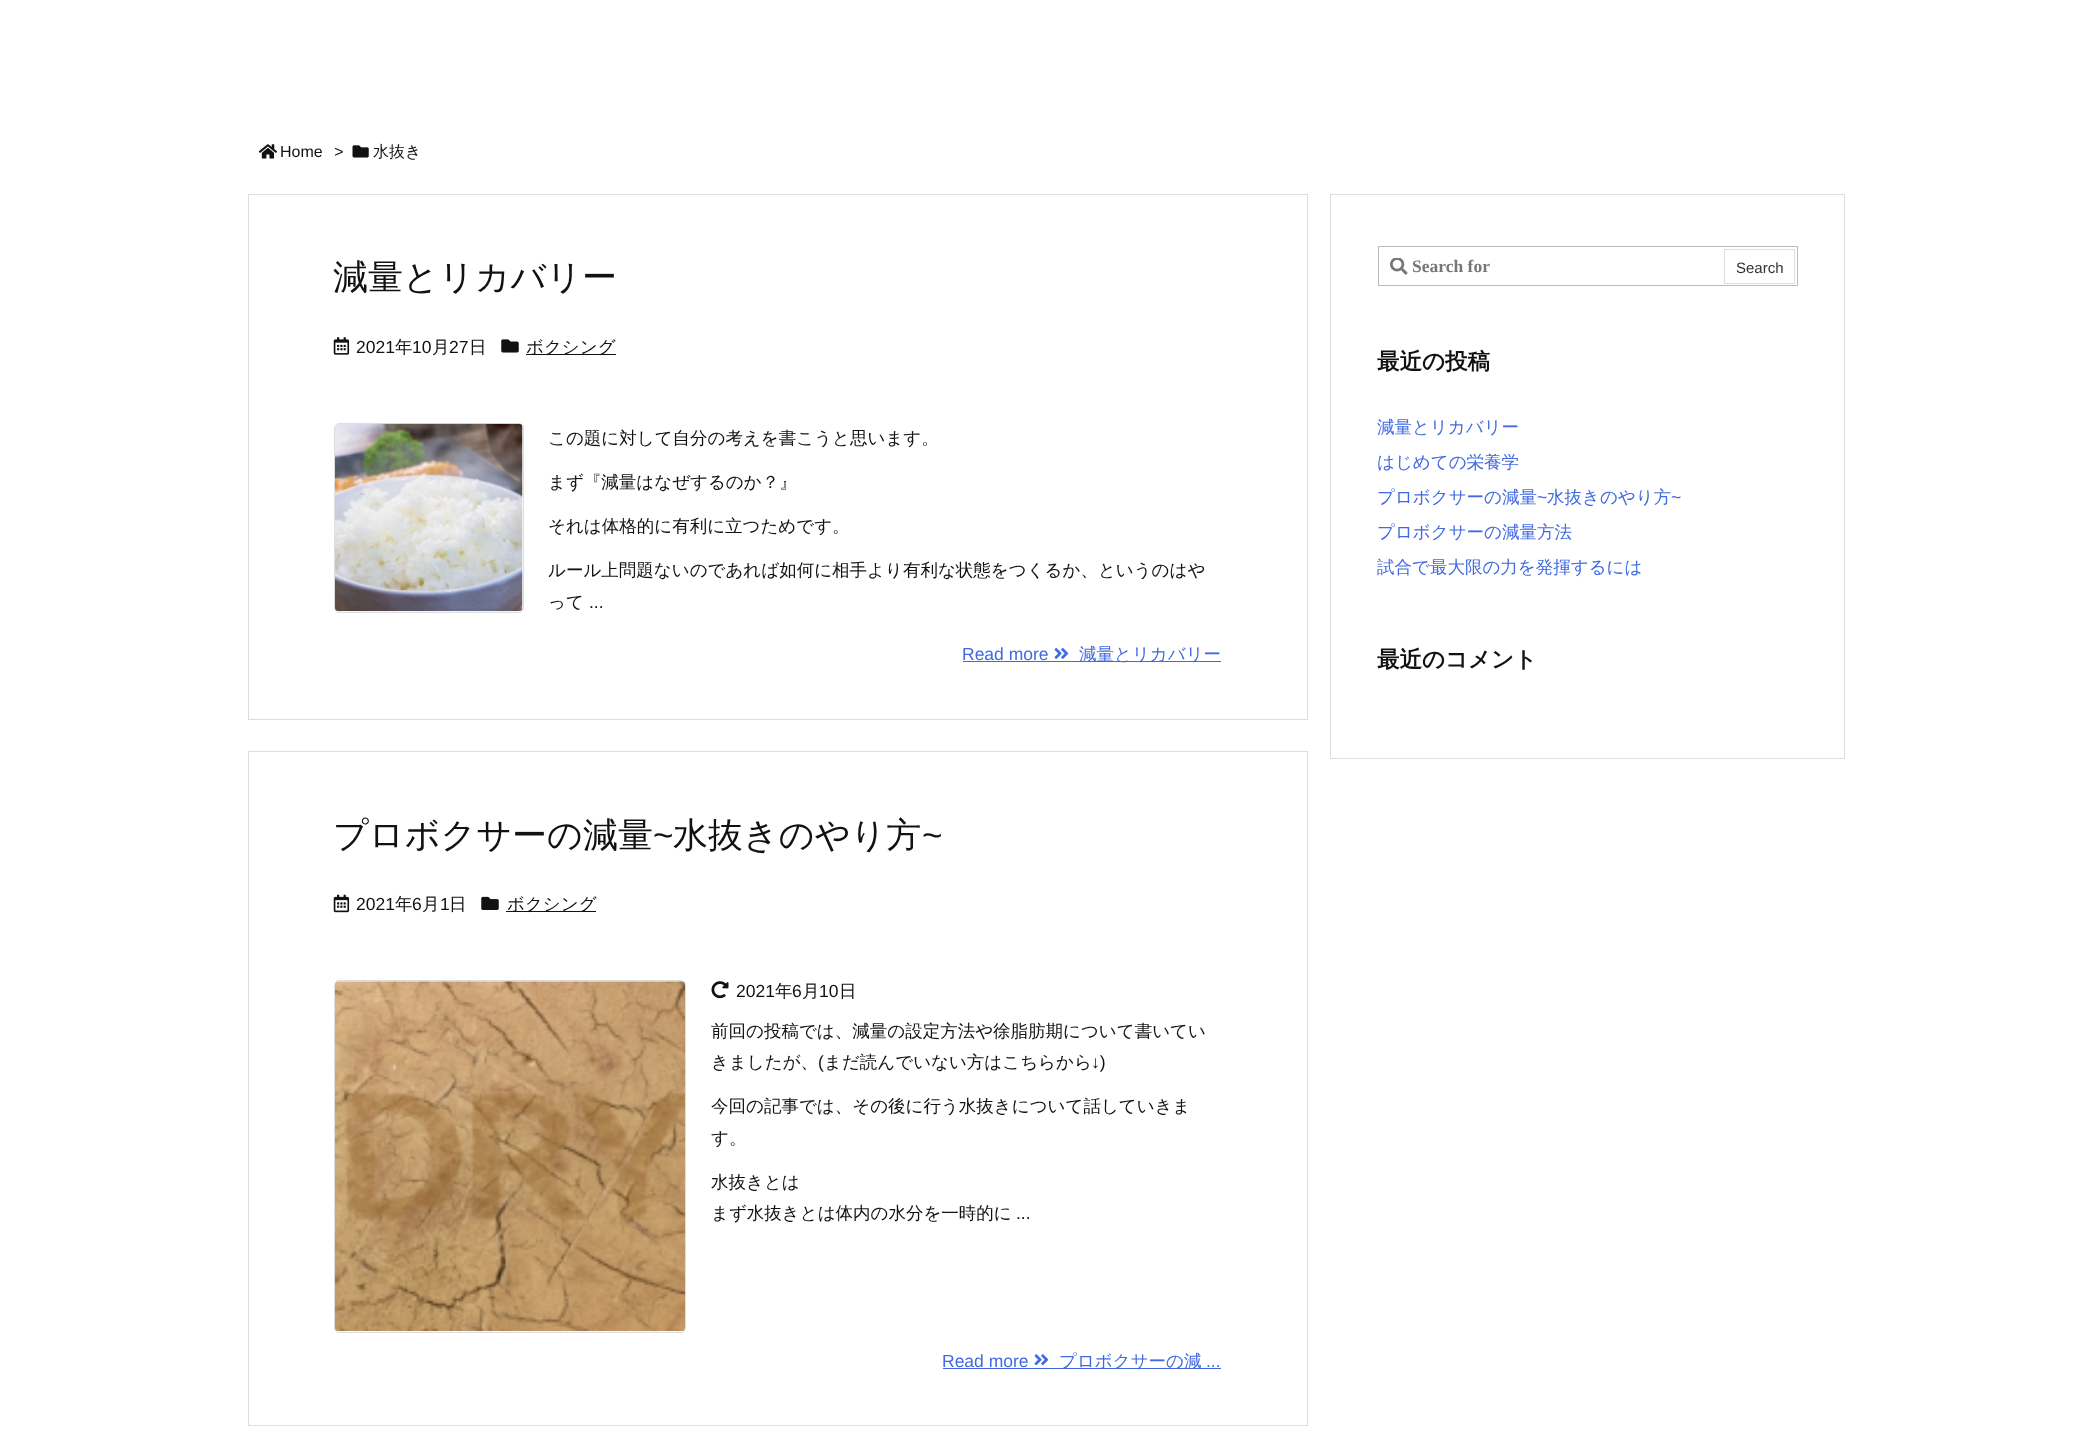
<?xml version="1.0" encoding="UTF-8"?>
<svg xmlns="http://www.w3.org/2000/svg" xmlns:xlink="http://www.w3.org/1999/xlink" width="2091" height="1455">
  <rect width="100%" height="100%" fill="#ffffff" />
  <image x="258" y="144" width="19" height="15" xlink:href="image1.png" />
  <image x="352" y="145" width="17" height="13" xlink:href="image2.png" />
  <rect x="248.5" y="194.5" width="1059" height="525" fill="none" stroke="#dddddd" />
  <image x="333" y="337" width="17" height="18" xlink:href="image3.png" />
  <image x="501" y="339" width="18" height="14" xlink:href="image4.png" />
  <rect x="526" y="354" width="90" height="1" fill="#111111" />
  <rect x="334.5" y="423.5" width="189" height="189" rx="4.5" fill="none" stroke="#dddddd" />
  <image x="335" y="423" width="188" height="189" xlink:href="image5.png" />
  <rect x="963" y="661" width="258" height="1" fill="#4169e1" />
  <image x="1054" y="648" width="15" height="11" xlink:href="image6.png" />
  <rect x="248.5" y="751.5" width="1059" height="674" fill="none" stroke="#dddddd" />
  <image x="333" y="894" width="17" height="19" xlink:href="image7.png" />
  <image x="481" y="896" width="18" height="14" xlink:href="image8.png" />
  <rect x="506" y="911" width="90" height="1" fill="#111111" />
  <rect x="334.5" y="980.5" width="351" height="352" rx="4.5" fill="none" stroke="#dddddd" />
  <image x="335" y="981" width="350" height="351" xlink:href="image9.png" />
  <image x="711" y="981" width="18" height="18" xlink:href="image10.png" />
  <rect x="943" y="1368" width="278" height="1" fill="#4169e1" />
  <image x="1034" y="1354" width="15" height="12" xlink:href="image11.png" />
  <rect x="1330.5" y="194.5" width="514" height="564" fill="none" stroke="#dddddd" />
  <rect x="1378.5" y="246.5" width="419" height="39" fill="none" stroke="#bbbbbb" />
  <image x="1390" y="258" width="18" height="17" xlink:href="image12.png" />
  <rect x="1724.5" y="249.5" width="70" height="34" fill="none" stroke="#dddddd" />
  <text x="280" y="157" style="font-family: Liberation Sans; font-size: 16px; fill: #111111">Home</text>
  <text x="334" y="157" style="font-family: Liberation Sans; font-size: 16px; font-style: italic; fill: #111111">&gt;</text>
  <text x="373" y="157" style="font-family: WenQuanYi Zen Hei; font-size: 16px; font-weight: 500; fill: #111111">水抜き</text>
  <text x="333" y="289" style="font-family: WenQuanYi Zen Hei; font-size: 35px; font-weight: 500; fill: #111111">減量とリカバリー</text>
  <text x="356" y="353" style="font-family: Liberation Sans; font-size: 17.5px; fill: #111111">2021</text>
  <text x="395" y="353" style="font-family: WenQuanYi Zen Hei; font-size: 17.5px; font-weight: 500; fill: #111111">年</text>
  <text x="412" y="353" style="font-family: Liberation Sans; font-size: 17.5px; fill: #111111">10</text>
  <text x="432" y="353" style="font-family: WenQuanYi Zen Hei; font-size: 17.5px; font-weight: 500; fill: #111111">月</text>
  <text x="449" y="353" style="font-family: Liberation Sans; font-size: 17.5px; fill: #111111">27</text>
  <text x="469" y="353" style="font-family: WenQuanYi Zen Hei; font-size: 17.5px; font-weight: 500; fill: #111111">日</text>
  <text x="526" y="353" style="font-family: WenQuanYi Zen Hei; font-size: 17.5px; font-weight: 500; fill: #111111">ボクシング</text>
  <text x="548" y="444" style="font-family: WenQuanYi Zen Hei; font-size: 17.5px; font-weight: 500; fill: #111111">この題に対して自分の考えを書こうと思います。</text>
  <text x="548" y="488" style="font-family: WenQuanYi Zen Hei; font-size: 17.5px; font-weight: 500; fill: #111111">まず『減量はなぜするのか？』</text>
  <text x="548" y="532" style="font-family: WenQuanYi Zen Hei; font-size: 17.5px; font-weight: 500; fill: #111111">それは体格的に有利に立つためです。</text>
  <text x="548" y="576" style="font-family: WenQuanYi Zen Hei; font-size: 17.5px; font-weight: 500; fill: #111111">ルール上問題ないのであれば如何に相手より有利な状態をつくるか、というのはや</text>
  <text x="548" y="608" style="font-family: WenQuanYi Zen Hei; font-size: 17.5px; font-weight: 500; fill: #111111">って</text>
  <text x="589" y="608" style="font-family: Liberation Sans; font-size: 17.5px; fill: #111111">...</text>
  <text x="962" y="660" style="font-family: Liberation Sans; font-size: 17.5px; fill: #4169e1">Read more</text>
  <text x="1079" y="660" style="font-family: WenQuanYi Zen Hei; font-size: 17.5px; font-weight: 500; fill: #4169e1">減量とリカバリー</text>
  <text x="333" y="847" style="font-family: WenQuanYi Zen Hei; font-size: 35px; font-weight: 500; fill: #111111">プロボクサーの減量</text>
  <text x="653" y="847" style="font-family: Liberation Sans; font-size: 35px; fill: #111111">~</text>
  <text x="673" y="847" style="font-family: WenQuanYi Zen Hei; font-size: 35px; font-weight: 500; fill: #111111">水抜きのやり方</text>
  <text x="922" y="847" style="font-family: Liberation Sans; font-size: 35px; fill: #111111">~</text>
  <text x="356" y="910" style="font-family: Liberation Sans; font-size: 17.5px; fill: #111111">2021</text>
  <text x="395" y="910" style="font-family: WenQuanYi Zen Hei; font-size: 17.5px; font-weight: 500; fill: #111111">年</text>
  <text x="412" y="910" style="font-family: Liberation Sans; font-size: 17.5px; fill: #111111">6</text>
  <text x="422" y="910" style="font-family: WenQuanYi Zen Hei; font-size: 17.5px; font-weight: 500; fill: #111111">月</text>
  <text x="440" y="910" style="font-family: Liberation Sans; font-size: 17.5px; fill: #111111">1</text>
  <text x="449" y="910" style="font-family: WenQuanYi Zen Hei; font-size: 17.5px; font-weight: 500; fill: #111111">日</text>
  <text x="507" y="910" style="font-family: WenQuanYi Zen Hei; font-size: 17.5px; font-weight: 500; fill: #111111">ボクシング</text>
  <text x="736" y="997" style="font-family: Liberation Sans; font-size: 17.5px; fill: #111111">2021</text>
  <text x="775" y="997" style="font-family: WenQuanYi Zen Hei; font-size: 17.5px; font-weight: 500; fill: #111111">年</text>
  <text x="792" y="997" style="font-family: Liberation Sans; font-size: 17.5px; fill: #111111">6</text>
  <text x="802" y="997" style="font-family: WenQuanYi Zen Hei; font-size: 17.5px; font-weight: 500; fill: #111111">月</text>
  <text x="819" y="997" style="font-family: Liberation Sans; font-size: 17.5px; fill: #111111">10</text>
  <text x="839" y="997" style="font-family: WenQuanYi Zen Hei; font-size: 17.5px; font-weight: 500; fill: #111111">日</text>
  <text x="711" y="1037" style="font-family: WenQuanYi Zen Hei; font-size: 17.5px; font-weight: 500; fill: #111111">前回の投稿では、減量の設定方法や徐脂肪期について書いてい</text>
  <text x="711" y="1068" style="font-family: WenQuanYi Zen Hei; font-size: 17.5px; font-weight: 500; fill: #111111">きましたが、</text>
  <text x="818" y="1068" style="font-family: Liberation Sans; font-size: 17.5px; fill: #111111">(</text>
  <text x="824" y="1068" style="font-family: WenQuanYi Zen Hei; font-size: 17.5px; font-weight: 500; fill: #111111">まだ読んでいない方はこちらから</text>
  <text x="1091" y="1068" style="font-family: Liberation Sans; font-size: 17.5px; fill: #111111">↓)</text>
  <text x="711" y="1112" style="font-family: WenQuanYi Zen Hei; font-size: 17.5px; font-weight: 500; fill: #111111">今回の記事では、その後に行う水抜きについて話していきま</text>
  <text x="711" y="1144" style="font-family: WenQuanYi Zen Hei; font-size: 17.5px; font-weight: 500; fill: #111111">す。</text>
  <text x="711" y="1188" style="font-family: WenQuanYi Zen Hei; font-size: 17.5px; font-weight: 500; fill: #111111">水抜きとは</text>
  <text x="711" y="1219" style="font-family: WenQuanYi Zen Hei; font-size: 17.5px; font-weight: 500; fill: #111111">まず水抜きとは体内の水分を一時的に</text>
  <text x="1016" y="1219" style="font-family: Liberation Sans; font-size: 17.5px; fill: #111111">...</text>
  <text x="942" y="1367" style="font-family: Liberation Sans; font-size: 17.5px; fill: #4169e1">Read more</text>
  <text x="1059" y="1367" style="font-family: WenQuanYi Zen Hei; font-size: 17.5px; font-weight: 500; fill: #4169e1">プロボクサーの減</text>
  <text x="1206" y="1367" style="font-family: Liberation Sans; font-size: 17.5px; fill: #4169e1">...</text>
  <text x="1412" y="272" style="font-family: Liberation Serif; font-size: 17.5px; font-weight: bold; fill: #767676">Search for</text>
  <text x="1736" y="273" style="font-family: Liberation Sans; font-size: 15px; fill: #333333">Search</text>
  <text x="1377" y="369" style="font-family: WenQuanYi Zen Hei; font-size: 22.5px; font-weight: bold; fill: #111111">最近の投稿</text>
  <text x="1377" y="433" style="font-family: WenQuanYi Zen Hei; font-size: 17.5px; font-weight: 500; fill: #4169e1">減量とリカバリー</text>
  <text x="1377" y="468" style="font-family: WenQuanYi Zen Hei; font-size: 17.5px; font-weight: 500; fill: #4169e1">はじめての栄養学</text>
  <text x="1377" y="503" style="font-family: WenQuanYi Zen Hei; font-size: 17.5px; font-weight: 500; fill: #4169e1">プロボクサーの減量</text>
  <text x="1537" y="503" style="font-family: Liberation Sans; font-size: 17.5px; fill: #4169e1">~</text>
  <text x="1547" y="503" style="font-family: WenQuanYi Zen Hei; font-size: 17.5px; font-weight: 500; fill: #4169e1">水抜きのやり方</text>
  <text x="1671" y="503" style="font-family: Liberation Sans; font-size: 17.5px; fill: #4169e1">~</text>
  <text x="1377" y="538" style="font-family: WenQuanYi Zen Hei; font-size: 17.5px; font-weight: 500; fill: #4169e1">プロボクサーの減量方法</text>
  <text x="1377" y="573" style="font-family: WenQuanYi Zen Hei; font-size: 17.5px; font-weight: 500; fill: #4169e1">試合で最大限の力を発揮するには</text>
  <text x="1377" y="667" style="font-family: WenQuanYi Zen Hei; font-size: 22.5px; font-weight: bold; fill: #111111">最近のコメント</text>
</svg>
